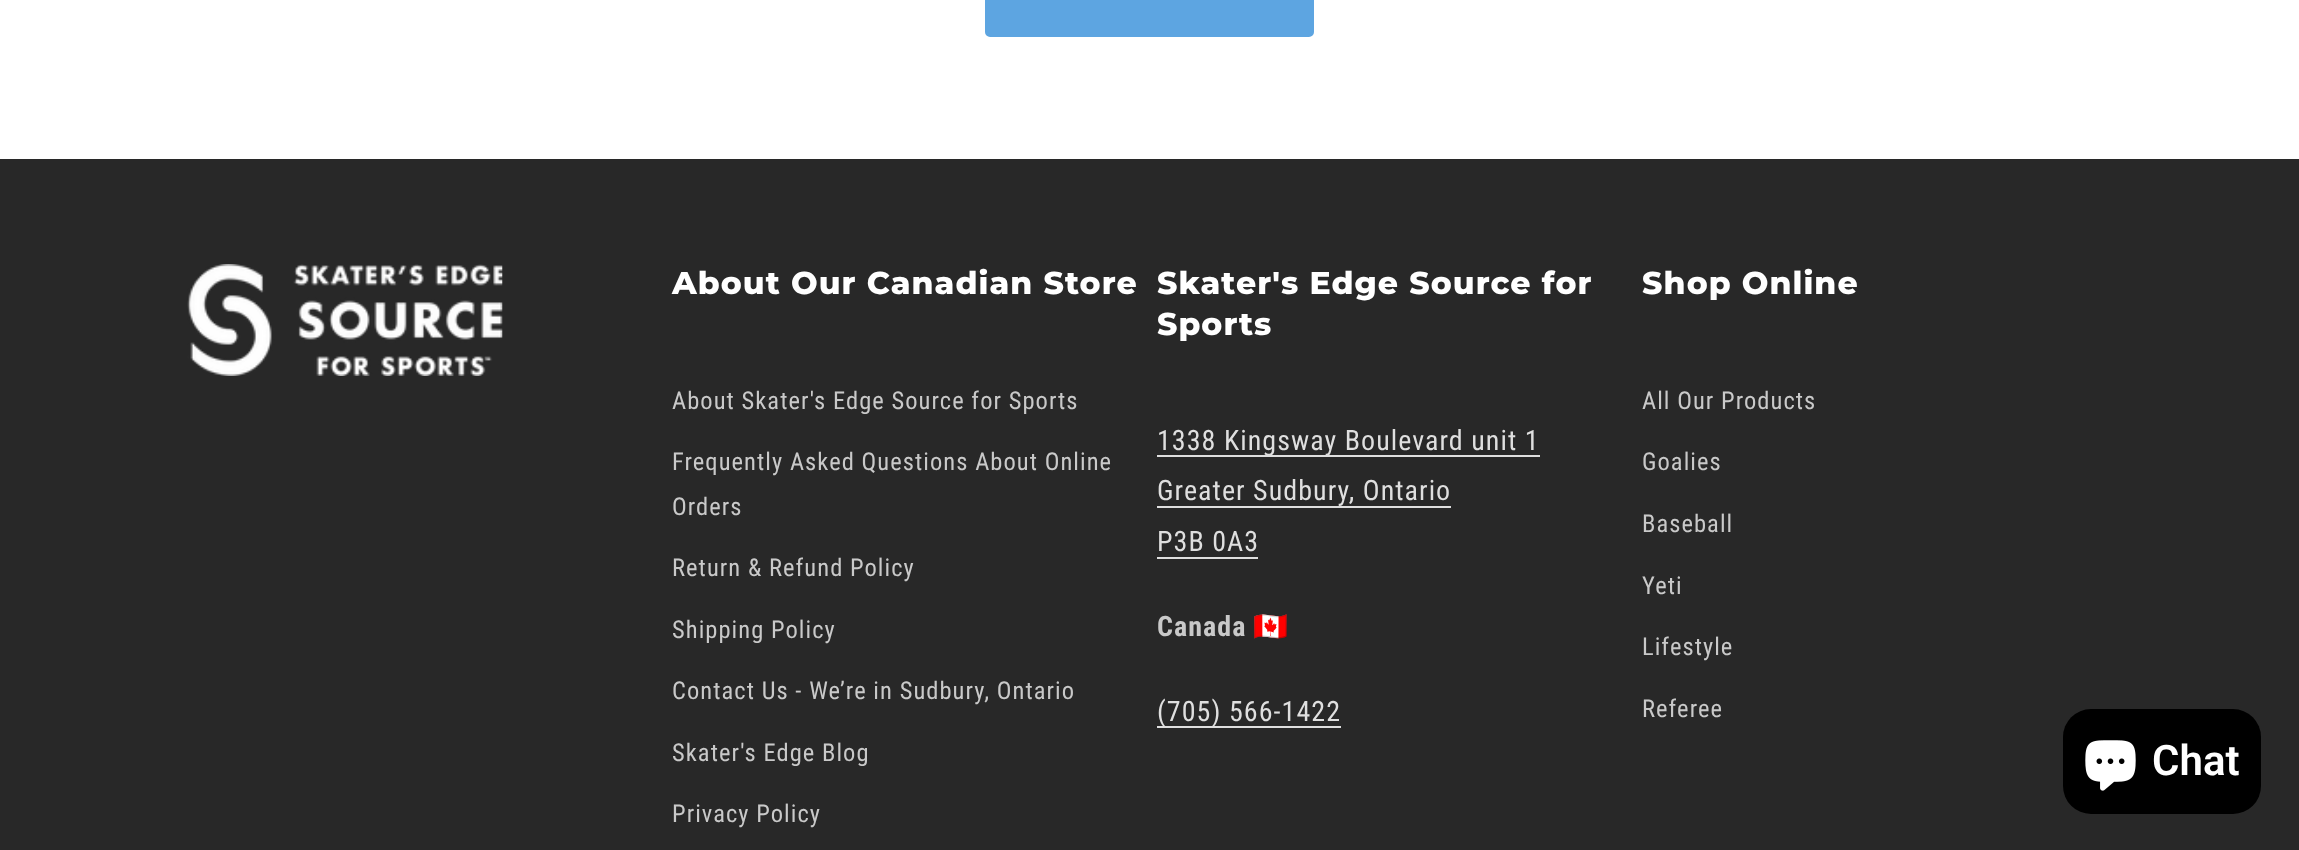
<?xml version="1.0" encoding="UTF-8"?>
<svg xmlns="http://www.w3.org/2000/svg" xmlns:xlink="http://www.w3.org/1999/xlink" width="2299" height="850">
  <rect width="100%" height="100%" fill="#ffffff" />
  <rect x="986" y="-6" width="327" height="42" rx="4" fill="#5da5e1" stroke="#5da5e1" stroke-width="2" />
  <rect y="159" width="2299" height="691" fill="#282828" />
  <image x="187" y="264" width="316" height="112" xlink:href="image1.png" />
  <rect x="1157" y="455" width="383" height="2" fill="#dfdfdf" />
  <rect x="1157" y="506" width="294" height="2" fill="#dfdfdf" />
  <rect x="1157" y="557" width="101" height="2" fill="#dfdfdf" />
  <rect x="1157" y="726" width="184" height="2" fill="#dfdfdf" />
  <rect x="2063" y="709" width="198" height="105" rx="28" fill="#000000" />
  <image x="2085" y="740" width="51" height="51" xlink:href="image2.png" />
  <text x="672" y="294" style="font-family: Montserrat; font-size: 31.5px; font-weight: 800; letter-spacing: 1.05px; fill: #ffffff">About Our Canadian Store</text>
  <text x="672" y="409" style="font-family: Roboto Condensed; font-size: 24.5px; letter-spacing: 1.05px; fill: #c9c9c9">About Skater's Edge Source for Sports</text>
  <text x="672" y="470" style="font-family: Roboto Condensed; font-size: 24.5px; letter-spacing: 1.05px; fill: #c9c9c9">Frequently Asked Questions About Online</text>
  <text x="672" y="515" style="font-family: Roboto Condensed; font-size: 24.5px; letter-spacing: 1.05px; fill: #c9c9c9">Orders</text>
  <text x="672" y="576" style="font-family: Roboto Condensed; font-size: 24.5px; letter-spacing: 1.05px; fill: #c9c9c9">Return &amp; Refund Policy</text>
  <text x="672" y="638" style="font-family: Roboto Condensed; font-size: 24.5px; letter-spacing: 1.05px; fill: #c9c9c9">Shipping Policy</text>
  <text x="672" y="699" style="font-family: Roboto Condensed; font-size: 24.5px; letter-spacing: 1.05px; fill: #c9c9c9">Contact Us - We’re in Sudbury, Ontario</text>
  <text x="672" y="761" style="font-family: Roboto Condensed; font-size: 24.5px; letter-spacing: 1.05px; fill: #c9c9c9">Skater's Edge Blog</text>
  <text x="672" y="822" style="font-family: Roboto Condensed; font-size: 24.5px; letter-spacing: 1.05px; fill: #c9c9c9">Privacy Policy</text>
  <text x="1157" y="294" style="font-family: Montserrat; font-size: 31.5px; font-weight: 800; letter-spacing: 1.05px; fill: #ffffff">Skater's Edge Source for</text>
  <text x="1157" y="335" style="font-family: Montserrat; font-size: 31.5px; font-weight: 800; letter-spacing: 1.05px; fill: #ffffff">Sports</text>
  <text x="1157" y="450" style="font-family: Roboto Condensed; font-size: 28px; letter-spacing: 1.05px; fill: #dfdfdf">1338 Kingsway Boulevard unit 1</text>
  <text x="1157" y="500" style="font-family: Roboto Condensed; font-size: 28px; letter-spacing: 1.05px; fill: #dfdfdf">Greater Sudbury, Ontario</text>
  <text x="1157" y="551" style="font-family: Roboto Condensed; font-size: 28px; letter-spacing: 1.05px; fill: #dfdfdf">P3B 0A3</text>
  <text x="1157" y="636" style="font-family: Roboto Condensed; font-size: 28px; font-weight: bold; letter-spacing: 1.05px; fill: #c9c9c9">Canada</text>
  <text x="1253" y="636" style="font-family: Noto Color Emoji; font-size: 28px; letter-spacing: 1.05px; fill: #c9c9c9">🇨🇦</text>
  <text x="1157" y="721" style="font-family: Roboto Condensed; font-size: 28px; letter-spacing: 1.05px; fill: #dfdfdf">(705) 566-1422</text>
  <text x="1642" y="294" style="font-family: Montserrat; font-size: 31.5px; font-weight: 800; letter-spacing: 1.05px; fill: #ffffff">Shop Online</text>
  <text x="1642" y="409" style="font-family: Roboto Condensed; font-size: 24.5px; letter-spacing: 1.05px; fill: #c9c9c9">All Our Products</text>
  <text x="1642" y="470" style="font-family: Roboto Condensed; font-size: 24.5px; letter-spacing: 1.05px; fill: #c9c9c9">Goalies</text>
  <text x="1642" y="532" style="font-family: Roboto Condensed; font-size: 24.5px; letter-spacing: 1.05px; fill: #c9c9c9">Baseball</text>
  <text x="1642" y="594" style="font-family: Roboto Condensed; font-size: 24.5px; letter-spacing: 1.05px; fill: #c9c9c9">Yeti</text>
  <text x="1642" y="655" style="font-family: Roboto Condensed; font-size: 24.5px; letter-spacing: 1.05px; fill: #c9c9c9">Lifestyle</text>
  <text x="1642" y="717" style="font-family: Roboto Condensed; font-size: 24.5px; letter-spacing: 1.05px; fill: #c9c9c9">Referee</text>
  <text x="2152" y="775" style="font-family: Roboto; font-size: 42px; font-weight: 600; fill: #ffffff">Chat</text>
</svg>
